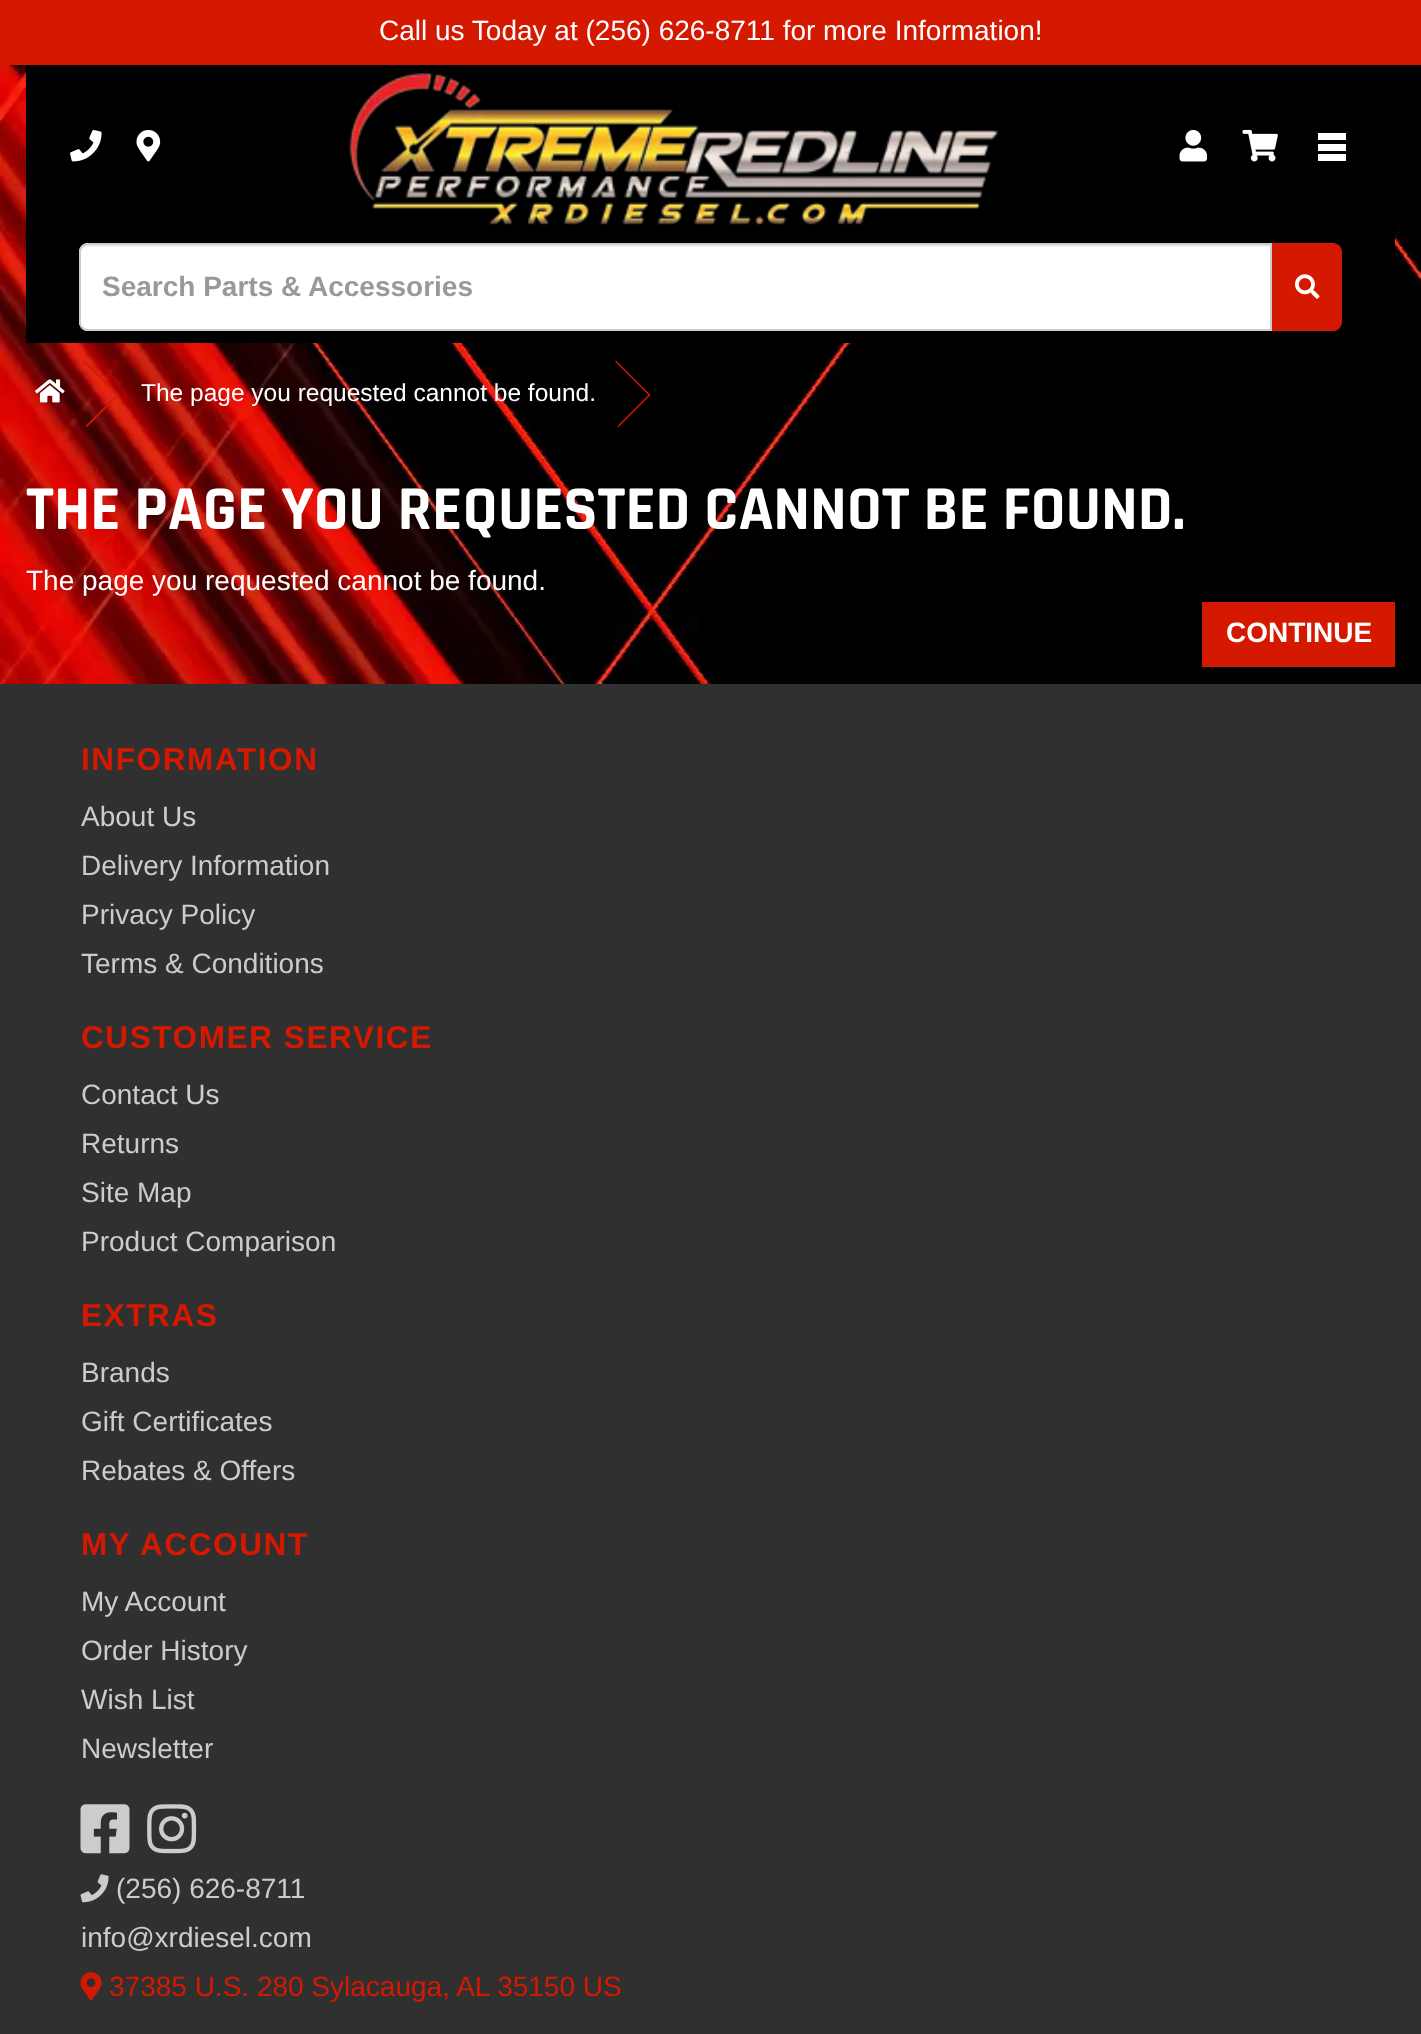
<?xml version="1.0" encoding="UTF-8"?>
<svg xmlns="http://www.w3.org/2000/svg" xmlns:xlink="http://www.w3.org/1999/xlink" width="1421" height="2034">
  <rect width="100%" height="100%" fill="#ffffff" />
  <image x="0" y="65" width="1421" height="619" xlink:href="image1.png" />
  <rect width="1421" height="65" fill="#d51900" />
  <rect x="26" y="65" width="1369" height="278" fill="#000000" />
  <image x="70" y="129" width="32" height="33" xlink:href="image2.png" />
  <image x="136" y="129" width="25" height="33" xlink:href="image3.png" />
  <image x="349" y="72" width="649" height="153" xlink:href="image4.png" />
  <image x="1179" y="129" width="29" height="33" xlink:href="image5.png" />
  <image x="1242" y="129" width="36" height="33" xlink:href="image6.png" />
  <rect x="1318" y="133" width="28" height="7" fill="#ffffff" />
  <rect x="1318" y="144" width="28" height="7" fill="#ffffff" />
  <rect x="1318" y="154" width="28" height="7" fill="#ffffff" />
  <path d="M 88 243 h 1184 v 88 h -1184 c -5 0 -9 -4 -9 -9 v -70 c 0 -5 4 -9 9 -9 z" fill="#ffffff" />
  <path d="M 88 247 h 1182 v 82 h 1 v -84 h -1183 c -3 0 -6 2 -7 5 c 2 -2 4 -3 7 -3 z" fill="#ececec" />
  <path d="M 88 244 h 1183 v 86 h -1183 c -4.5 0 -8 -3.5 -8 -8 v -70 c 0 -4.5 3.5 -8 8 -8 z" fill="none" stroke="#cccccc" stroke-width="2" />
  <path d="M 1273 244 h 60 c 4.5 0 8 3.5 8 8 v 70 c 0 4.5 -3.5 8 -8 8 h -60 z" fill="#d51900" stroke="#d51900" stroke-width="2" />
  <image x="1295" y="274" width="25" height="25" xlink:href="image7.png" />
  <image x="35" y="379" width="30" height="24" xlink:href="image8.png" />
  <path d="M 83 361.5 l 1.5 -1 l 34.5 34.5 l -1.5 1 z" fill="#d51900" />
  <path d="M 85.5 426 l 32 -32 l 1.5 1 l -32 32 z" fill="#d51900" />
  <path d="M 615 361.5 l 1 -1 l 34.5 34.5 l -1 1 z" fill="#d51900" />
  <path d="M 617.5 426 l 32 -32 l 1 1 l -32 32 z" fill="#d51900" />
  <rect x="1202" y="602" width="193" height="65" fill="#d51900" />
  <rect y="684" width="1421" height="1350" fill="#303030" />
  <image x="80" y="1804" width="50" height="50" xlink:href="image9.png" />
  <image x="147" y="1804" width="50" height="50" xlink:href="image10.png" />
  <image x="80" y="1874" width="29" height="29" xlink:href="image11.png" />
  <image x="80" y="1972" width="22" height="29" xlink:href="image12.png" />
  <text x="379" y="40" style="font-family: Arimo; font-size: 28px; fill: #ffffff">Call us Today at (256) 626-8711 for more Information!</text>
  <text x="102" y="296" style="font-family: Arimo; font-size: 28px; font-weight: bold; fill: #999999">Search Parts &amp; Accessories</text>
  <text x="141" y="401" style="font-family: Arimo; font-size: 24.5px; fill: #ffffff">The page you requested cannot be found.</text>
  <text x="26" y="529" style="font-family: Rajdhani; font-size: 63px; font-weight: bold; fill: #ffffff">THE PAGE YOU REQUESTED CANNOT BE FOUND.</text>
  <text x="26" y="590" style="font-family: Arimo; font-size: 28px; fill: #ffffff">The page you requested cannot be found.</text>
  <text x="1226" y="642" style="font-family: Arimo; font-size: 28px; font-weight: bold; fill: #ffffff">CONTINUE</text>
  <text x="81" y="770" style="font-family: Arimo; font-size: 31.5px; font-weight: bold; letter-spacing: 1.6px; fill: #d51900">INFORMATION</text>
  <text x="81" y="826" style="font-family: Arimo; font-size: 28px; fill: #cccccc">About Us</text>
  <text x="81" y="875" style="font-family: Arimo; font-size: 28px; fill: #cccccc">Delivery Information</text>
  <text x="81" y="924" style="font-family: Arimo; font-size: 28px; fill: #cccccc">Privacy Policy</text>
  <text x="81" y="973" style="font-family: Arimo; font-size: 28px; fill: #cccccc">Terms &amp; Conditions</text>
  <text x="81" y="1048" style="font-family: Arimo; font-size: 31.5px; font-weight: bold; letter-spacing: 1.6px; fill: #d51900">CUSTOMER SERVICE</text>
  <text x="81" y="1104" style="font-family: Arimo; font-size: 28px; fill: #cccccc">Contact Us</text>
  <text x="81" y="1153" style="font-family: Arimo; font-size: 28px; fill: #cccccc">Returns</text>
  <text x="81" y="1202" style="font-family: Arimo; font-size: 28px; fill: #cccccc">Site Map</text>
  <text x="81" y="1251" style="font-family: Arimo; font-size: 28px; fill: #cccccc">Product Comparison</text>
  <text x="81" y="1326" style="font-family: Arimo; font-size: 31.5px; font-weight: bold; letter-spacing: 1.6px; fill: #d51900">EXTRAS</text>
  <text x="81" y="1382" style="font-family: Arimo; font-size: 28px; fill: #cccccc">Brands</text>
  <text x="81" y="1431" style="font-family: Arimo; font-size: 28px; fill: #cccccc">Gift Certificates</text>
  <text x="81" y="1480" style="font-family: Arimo; font-size: 28px; fill: #cccccc">Rebates &amp; Offers</text>
  <text x="81" y="1555" style="font-family: Arimo; font-size: 31.5px; font-weight: bold; letter-spacing: 1.6px; fill: #d51900">MY ACCOUNT</text>
  <text x="81" y="1611" style="font-family: Arimo; font-size: 28px; fill: #cccccc">My Account</text>
  <text x="81" y="1660" style="font-family: Arimo; font-size: 28px; fill: #cccccc">Order History</text>
  <text x="81" y="1709" style="font-family: Arimo; font-size: 28px; fill: #cccccc">Wish List</text>
  <text x="81" y="1758" style="font-family: Arimo; font-size: 28px; fill: #cccccc">Newsletter</text>
  <text x="116" y="1898" style="font-family: Arimo; font-size: 28px; fill: #cccccc">(256) 626-8711</text>
  <text x="81" y="1947" style="font-family: Arimo; font-size: 28px; fill: #cccccc">info@xrdiesel.com</text>
  <text x="109" y="1996" style="font-family: Arimo; font-size: 28px; fill: #d51900">37385 U.S. 280 Sylacauga, AL 35150 US</text>
</svg>
